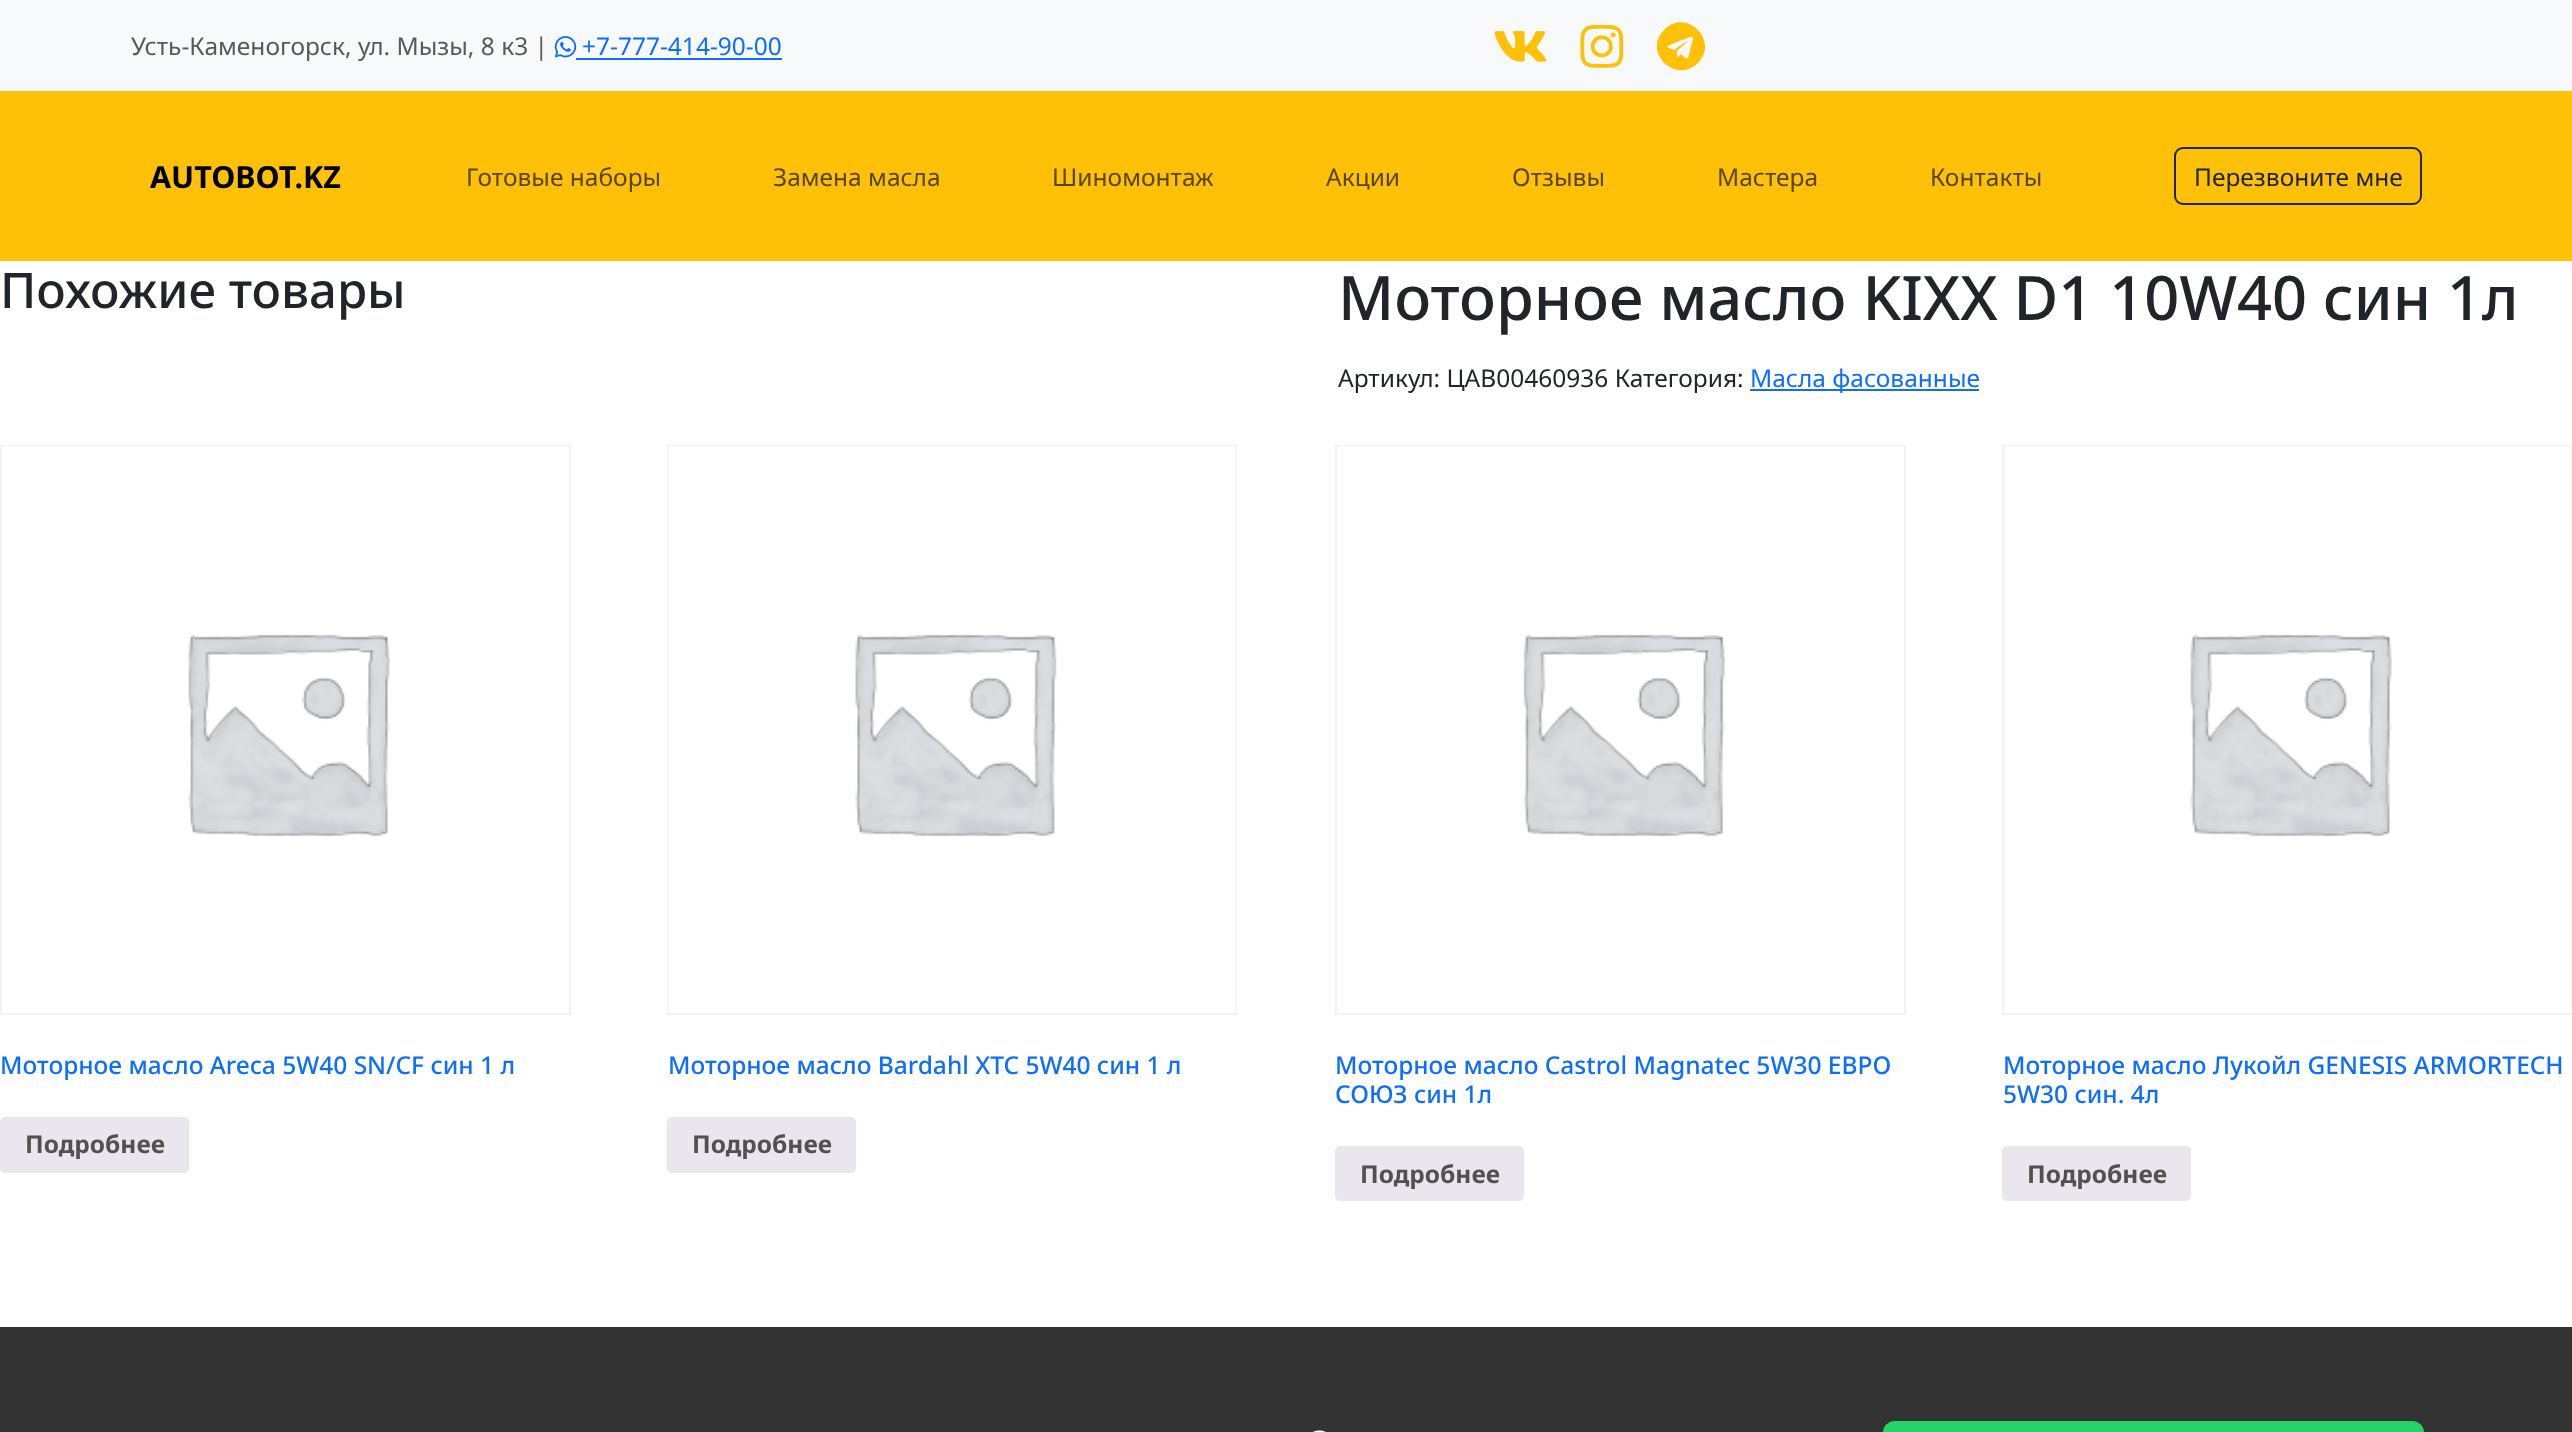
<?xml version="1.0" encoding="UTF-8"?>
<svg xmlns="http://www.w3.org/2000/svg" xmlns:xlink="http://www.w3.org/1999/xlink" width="2572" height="1432">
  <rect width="100%" height="100%" fill="#ffffff" />
  <rect width="2572" height="91" fill="#f8f9fa" />
  <image x="554" y="36" width="23" height="22" xlink:href="image1.png" />
  <rect x="576" y="58" width="206" height="2" fill="#0d6efd" />
  <image x="1494" y="31" width="53" height="31" xlink:href="image2.png" />
  <image x="1580" y="24" width="44" height="44" xlink:href="image3.png" />
  <path d="M 1664 30 c 22 -23 56 11 34 33 c -22 22 -56 -11 -34 -33 z m 29 9 c 0 -4 -5 -1 -6 -1 l -15 6 c -3 2 -6 2 -5 3 l 7 3 l 13 -9 h 1 l -11 10 v 6 c 1 0 3 -2 4 -3 c 5 4 7 8 8 0 z" fill="#ffc107" />
  <rect y="91" width="2572" height="170" fill="#ffc107" />
  <rect x="2175" y="148" width="246" height="56" rx="8" fill="none" stroke="#212529" stroke-width="2" />
  <rect x="1" y="446" width="569" height="568" fill="none" stroke="#f2f2f2" stroke-width="2" />
  <image x="2" y="446" width="567" height="391" xlink:href="image4.png" />
  <rect y="1117" width="189" height="56" rx="5" fill="#e9e6ed" />
  <rect x="668" y="446" width="568" height="568" fill="none" stroke="#f2f2f2" stroke-width="2" />
  <image x="668" y="446" width="568" height="567" xlink:href="image5.png" />
  <rect x="667" y="1117" width="189" height="56" rx="5" fill="#e9e6ed" />
  <rect x="1336" y="446" width="569" height="568" fill="none" stroke="#f2f2f2" stroke-width="2" />
  <image x="1337" y="446" width="567" height="391" xlink:href="image6.png" />
  <rect x="1335" y="1146" width="189" height="55" rx="5" fill="#e9e6ed" />
  <rect x="2003" y="446" width="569" height="568" fill="none" stroke="#f2f2f2" stroke-width="2" />
  <image x="2004" y="446" width="567" height="391" xlink:href="image4.png" />
  <rect x="2002" y="1146" width="189" height="55" rx="5" fill="#e9e6ed" />
  <rect x="1750" y="389" width="229" height="2" fill="#0d6efd" />
  <rect y="1327" width="2572" height="105" fill="#333333" />
  <image x="1313" y="1430" width="13" height="2" xlink:href="image7.png" />
  <rect x="1883" y="1421" width="541" height="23" rx="12" fill="#25d366" />
  <text x="131" y="55" style="font-family: Noto Sans; font-size: 24.5px; fill: #575a5d">Усть-Каменогорск, ул. Мызы, 8 к3 |</text>
  <text x="582" y="55" style="font-family: Noto Sans; font-size: 24.5px; fill: #0d6efd">+7-777-414-90-00</text>
  <text x="150" y="188" style="font-family: Noto Sans; font-size: 30.5px; font-weight: bold; fill: #000000">AUTOBOT.KZ</text>
  <text x="466" y="186" style="font-family: Noto Sans; font-size: 24.5px; fill: #594402">Готовые наборы</text>
  <text x="773" y="186" style="font-family: Noto Sans; font-size: 24.5px; fill: #594402">Замена масла</text>
  <text x="1052" y="186" style="font-family: Noto Sans; font-size: 24.5px; fill: #594402">Шиномонтаж</text>
  <text x="1326" y="186" style="font-family: Noto Sans; font-size: 24.5px; fill: #594402">Акции</text>
  <text x="1512" y="186" style="font-family: Noto Sans; font-size: 24.5px; fill: #594402">Отзывы</text>
  <text x="1717" y="186" style="font-family: Noto Sans; font-size: 24.5px; fill: #594402">Мастера</text>
  <text x="1930" y="186" style="font-family: Noto Sans; font-size: 24.5px; fill: #594402">Контакты</text>
  <text x="2194" y="186" style="font-family: Noto Sans; font-size: 24.5px; fill: #212529">Перезвоните мне</text>
  <text x="0" y="308" style="font-family: Noto Sans; font-size: 49px; font-weight: 500; fill: #212529">Похожие товары</text>
  <text x="0" y="1074" style="font-family: Noto Sans; font-size: 24.5px; font-weight: 500; fill: #0d6efd">Моторное масло Areca 5W40 SN/CF син 1 л</text>
  <text x="25" y="1153" style="font-family: Noto Sans; font-size: 24.5px; font-weight: bold; fill: #515151">Подробнее</text>
  <text x="668" y="1074" style="font-family: Noto Sans; font-size: 24.5px; font-weight: 500; fill: #0d6efd">Моторное масло Bardahl XTC 5W40 син 1 л</text>
  <text x="692" y="1153" style="font-family: Noto Sans; font-size: 24.5px; font-weight: bold; fill: #515151">Подробнее</text>
  <text x="1335" y="1074" style="font-family: Noto Sans; font-size: 24.5px; font-weight: 500; fill: #0d6efd">Моторное масло Castrol Magnatec 5W30 ЕВРО</text>
  <text x="1335" y="1103" style="font-family: Noto Sans; font-size: 24.5px; font-weight: 500; fill: #0d6efd">СОЮЗ син 1л</text>
  <text x="1360" y="1183" style="font-family: Noto Sans; font-size: 24.5px; font-weight: bold; fill: #515151">Подробнее</text>
  <text x="2003" y="1074" style="font-family: Noto Sans; font-size: 24.5px; font-weight: 500; fill: #0d6efd">Моторное масло Лукойл GENESIS ARMORTECH</text>
  <text x="2003" y="1103" style="font-family: Noto Sans; font-size: 24.5px; font-weight: 500; fill: #0d6efd">5W30 син. 4л</text>
  <text x="2027" y="1183" style="font-family: Noto Sans; font-size: 24.5px; font-weight: bold; fill: #515151">Подробнее</text>
  <text x="1338" y="320" style="font-family: Noto Sans; font-size: 61.25px; font-weight: 500; fill: #212529">Моторное масло KIXX D1 10W40 син 1л</text>
  <text x="1338" y="387" style="font-family: Noto Sans; font-size: 24.5px; fill: #212529">Артикул: ЦAB00460936 Категория:</text>
  <text x="1750" y="387" style="font-family: Noto Sans; font-size: 24.5px; fill: #0d6efd">Масла фасованные</text>
</svg>
